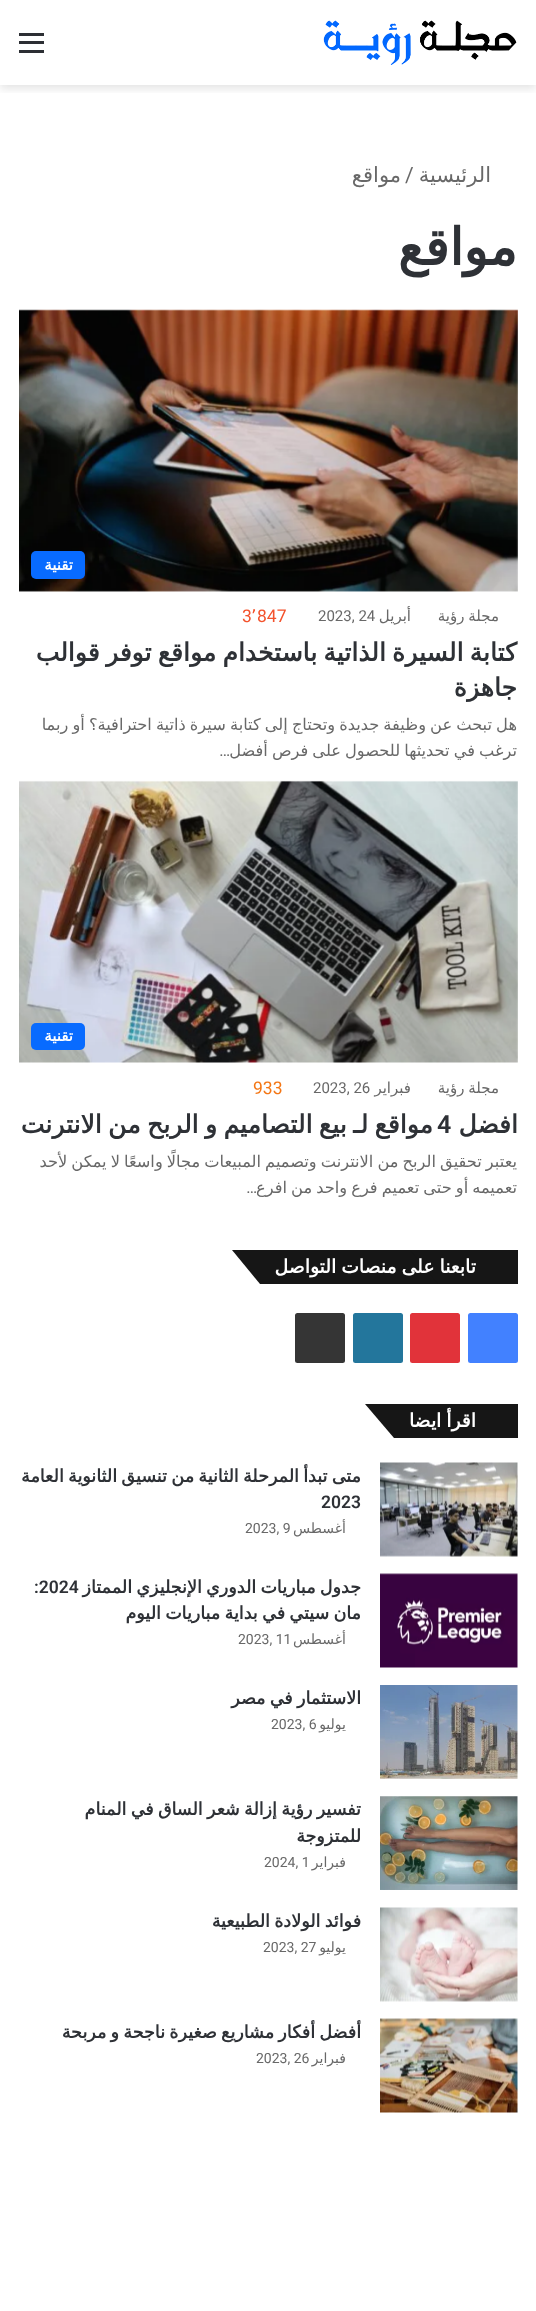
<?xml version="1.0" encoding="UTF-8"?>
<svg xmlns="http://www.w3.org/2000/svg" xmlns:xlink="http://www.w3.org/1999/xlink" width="536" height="2311">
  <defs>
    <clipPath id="clip1"><rect x="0" y="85" width="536" height="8" /></clipPath>
  </defs>
  <rect width="100%" height="100%" fill="#ffffff" />
  <g clip-path="url(#clip1)">
    <rect y="4" width="536" height="85" fill="#000000" fill-opacity="0.1" filter="blur(4.5px)" />
  </g>
  <image x="323" y="20" width="194" height="45" xlink:href="image1.png" />
  <rect x="19" y="41" width="25" height="3" fill="#2c2f34" />
  <rect x="19" y="33" width="25" height="3" fill="#2c2f34" />
  <rect x="19" y="50" width="25" height="3" fill="#2c2f34" />
  <image x="19" y="309" width="499" height="283" xlink:href="image2.png" />
  <rect x="31" y="551" width="54" height="28" rx="5" fill="#086bff" />
  <image x="19" y="780" width="499" height="283" xlink:href="image3.png" />
  <rect x="31" y="1023" width="54" height="27" rx="5" fill="#086bff" />
  <rect x="410" y="1250" width="108" height="34" fill="#161616" />
  <path d="M 232 1250 h 178 l 28 34 h -178 z" fill="#161616" />
  <rect x="468" y="1313" width="50" height="50" rx="2.5" fill="#4281ff" />
  <rect x="410" y="1313" width="50" height="50" rx="2.5" fill="#e1333a" />
  <rect x="353" y="1313" width="50" height="50" rx="2.5" fill="#23769c" />
  <rect x="295" y="1313" width="50" height="50" rx="2.5" fill="#353535" />
  <rect x="450" y="1404" width="68" height="34" fill="#161616" />
  <path d="M 365 1404 h 85 l 28 34 h -84 z" fill="#161616" />
  <image x="380" y="1462" width="138" height="95" xlink:href="image4.png" />
  <image x="380" y="1573" width="138" height="95" xlink:href="image5.png" />
  <image x="380" y="1685" width="138" height="94" xlink:href="image6.png" />
  <image x="380" y="1796" width="138" height="94" xlink:href="image7.png" />
  <image x="380" y="1907" width="138" height="95" xlink:href="image8.png" />
  <image x="380" y="2018" width="138" height="95" xlink:href="image9.png" />
  <text x="491" y="182" style="font-family: DejaVu Sans; font-size: 21px; direction: rtl; fill: #686868">الرئيسية</text>
  <text x="405" y="182" style="font-family: Roboto; font-size: 21px; fill: #686868">/</text>
  <text x="401" y="182" style="font-family: DejaVu Sans; font-size: 21px; direction: rtl; fill: #686868">مواقع</text>
  <text x="517" y="265" style="font-family: DejaVu Sans; font-size: 51px; font-weight: bold; direction: rtl; fill: #2e3136">مواقع</text>
  <text x="73" y="570" style="font-family: DejaVu Sans; font-size: 15px; font-weight: bold; direction: rtl; fill: #ffffff">تقنية</text>
  <text x="499" y="621" word-spacing="-1" style="font-family: DejaVu Sans; font-size: 15px; direction: rtl; fill: #686868">مجلة رؤية</text>
  <text x="411" y="621" style="font-family: DejaVu Sans; font-size: 15px; direction: rtl; fill: #686868">أبريل</text>
  <text x="318" y="621" style="font-family: Roboto; font-size: 15px; fill: #686868">2023, 24</text>
  <text x="257" y="622" style="font-family: Roboto; font-size: 17.5px; fill: #f3522c">847</text>
  <text x="251" y="622" style="font-family: DejaVu Sans; font-size: 17.5px; fill: #f3522c">٬</text>
  <text x="242" y="622" style="font-family: Roboto; font-size: 17.5px; fill: #f3522c">3</text>
  <text x="517" y="661" word-spacing="-1.75" style="font-family: DejaVu Sans; font-size: 25px; font-weight: bold; direction: rtl; fill: #2e3136">كتابة السيرة الذاتية باستخدام مواقع توفر قوالب</text>
  <text x="517" y="696" style="font-family: DejaVu Sans; font-size: 25px; font-weight: bold; direction: rtl; fill: #2e3136">جاهزة</text>
  <text x="517" y="730" word-spacing="-1.1" style="font-family: DejaVu Sans; font-size: 16.25px; direction: rtl; fill: #686868">هل تبحث عن وظيفة جديدة وتحتاج إلى كتابة سيرة ذاتية احترافية؟ أو ربما</text>
  <text x="517" y="756" word-spacing="-1.1" style="font-family: DejaVu Sans; font-size: 16.25px; direction: rtl; fill: #686868">ترغب في تحديثها للحصول على فرص أفضل</text>
  <text x="230" y="756" style="font-family: Roboto; font-size: 16.25px; direction: rtl; fill: #686868">…</text>
  <text x="73" y="1041" style="font-family: DejaVu Sans; font-size: 15px; font-weight: bold; direction: rtl; fill: #ffffff">تقنية</text>
  <text x="499" y="1093" word-spacing="-1" style="font-family: DejaVu Sans; font-size: 15px; direction: rtl; fill: #686868">مجلة رؤية</text>
  <text x="411" y="1093" style="font-family: DejaVu Sans; font-size: 15px; direction: rtl; fill: #686868">فبراير</text>
  <text x="313" y="1093" style="font-family: Roboto; font-size: 15px; fill: #686868">2023, 26</text>
  <text x="253" y="1094" style="font-family: Roboto; font-size: 17.5px; fill: #f47614">933</text>
  <text x="518" y="1133" style="font-family: DejaVu Sans; font-size: 25px; font-weight: bold; direction: rtl; fill: #2e3136">افضل</text>
  <text x="433" y="1133" word-spacing="-1.5" style="font-family: DejaVu Sans; font-size: 25px; font-weight: bold; direction: rtl; fill: #2e3136">مواقع لـ بيع التصاميم و الربح من الانترنت</text>
  <text x="437" y="1133" style="font-family: Roboto; font-size: 25px; font-weight: 600; fill: #2e3136">4</text>
  <text x="517" y="1167" word-spacing="-1.1" style="font-family: DejaVu Sans; font-size: 16.25px; direction: rtl; fill: #686868">يعتبر تحقيق الربح من الانترنت وتصميم المبيعات مجالًا واسعًا لا يمكن لأحد</text>
  <text x="517" y="1193" word-spacing="-1.1" style="font-family: DejaVu Sans; font-size: 16.25px; direction: rtl; fill: #686868">تعميمه أو حتى تعميم فرع واحد من افرع</text>
  <text x="257" y="1193" style="font-family: Roboto; font-size: 16.25px; direction: rtl; fill: #686868">…</text>
  <text x="476" y="1273" word-spacing="-1" style="font-family: DejaVu Sans; font-size: 18.75px; font-weight: bold; direction: rtl; fill: #ffffff">تابعنا على منصات التواصل</text>
  <text x="476" y="1427" word-spacing="-1" style="font-family: DejaVu Sans; font-size: 18.75px; font-weight: bold; direction: rtl; fill: #ffffff">اقرأ ايضا</text>
  <text x="361" y="1482" word-spacing="-1.25" style="font-family: DejaVu Sans; font-size: 17.5px; font-weight: bold; direction: rtl; fill: #2e3136">متى تبدأ المرحلة الثانية من تنسيق الثانوية العامة</text>
  <text x="321" y="1508" style="font-family: Roboto; font-size: 17.5px; font-weight: 600; fill: #2e3136">2023</text>
  <text x="346" y="1533" style="font-family: DejaVu Sans; font-size: 14px; direction: rtl; fill: #686868">أغسطس</text>
  <text x="245" y="1533" style="font-family: Roboto; font-size: 14px; fill: #686868">2023, 9</text>
  <text x="361" y="1593" word-spacing="-1.25" style="font-family: DejaVu Sans; font-size: 17.5px; font-weight: bold; direction: rtl; fill: #2e3136">جدول مباريات الدوري الإنجليزي الممتاز</text>
  <text x="34" y="1593" style="font-family: Roboto; font-size: 17.5px; font-weight: 600; fill: #2e3136">:2024</text>
  <text x="361" y="1619" word-spacing="-1.25" style="font-family: DejaVu Sans; font-size: 17.5px; font-weight: bold; direction: rtl; fill: #2e3136">مان سيتي في بداية مباريات اليوم</text>
  <text x="346" y="1644" style="font-family: DejaVu Sans; font-size: 14px; direction: rtl; fill: #686868">أغسطس</text>
  <text x="238" y="1644" style="font-family: Roboto; font-size: 14px; fill: #686868">2023, 11</text>
  <text x="361" y="1704" word-spacing="-1.25" style="font-family: DejaVu Sans; font-size: 17.5px; font-weight: bold; direction: rtl; fill: #2e3136">الاستثمار في مصر</text>
  <text x="346" y="1729" style="font-family: DejaVu Sans; font-size: 14px; direction: rtl; fill: #686868">يوليو</text>
  <text x="271" y="1729" style="font-family: Roboto; font-size: 14px; fill: #686868">2023, 6</text>
  <text x="361" y="1815" word-spacing="-1.25" style="font-family: DejaVu Sans; font-size: 17.5px; font-weight: bold; direction: rtl; fill: #2e3136">تفسير رؤية إزالة شعر الساق في المنام</text>
  <text x="361" y="1842" style="font-family: DejaVu Sans; font-size: 17.5px; font-weight: bold; direction: rtl; fill: #2e3136">للمتزوجة</text>
  <text x="346" y="1867" style="font-family: DejaVu Sans; font-size: 14px; direction: rtl; fill: #686868">فبراير</text>
  <text x="264" y="1867" style="font-family: Roboto; font-size: 14px; fill: #686868">2024, 1</text>
  <text x="361" y="1927" word-spacing="-1.25" style="font-family: DejaVu Sans; font-size: 17.5px; font-weight: bold; direction: rtl; fill: #2e3136">فوائد الولادة الطبيعية</text>
  <text x="346" y="1952" style="font-family: DejaVu Sans; font-size: 14px; direction: rtl; fill: #686868">يوليو</text>
  <text x="263" y="1952" style="font-family: Roboto; font-size: 14px; fill: #686868">2023, 27</text>
  <text x="361" y="2038" word-spacing="-1.25" style="font-family: DejaVu Sans; font-size: 17.5px; font-weight: bold; direction: rtl; fill: #2e3136">أفضل أفكار مشاريع صغيرة ناجحة و مربحة</text>
  <text x="346" y="2063" style="font-family: DejaVu Sans; font-size: 14px; direction: rtl; fill: #686868">فبراير</text>
  <text x="256" y="2063" style="font-family: Roboto; font-size: 14px; fill: #686868">2023, 26</text>
</svg>
